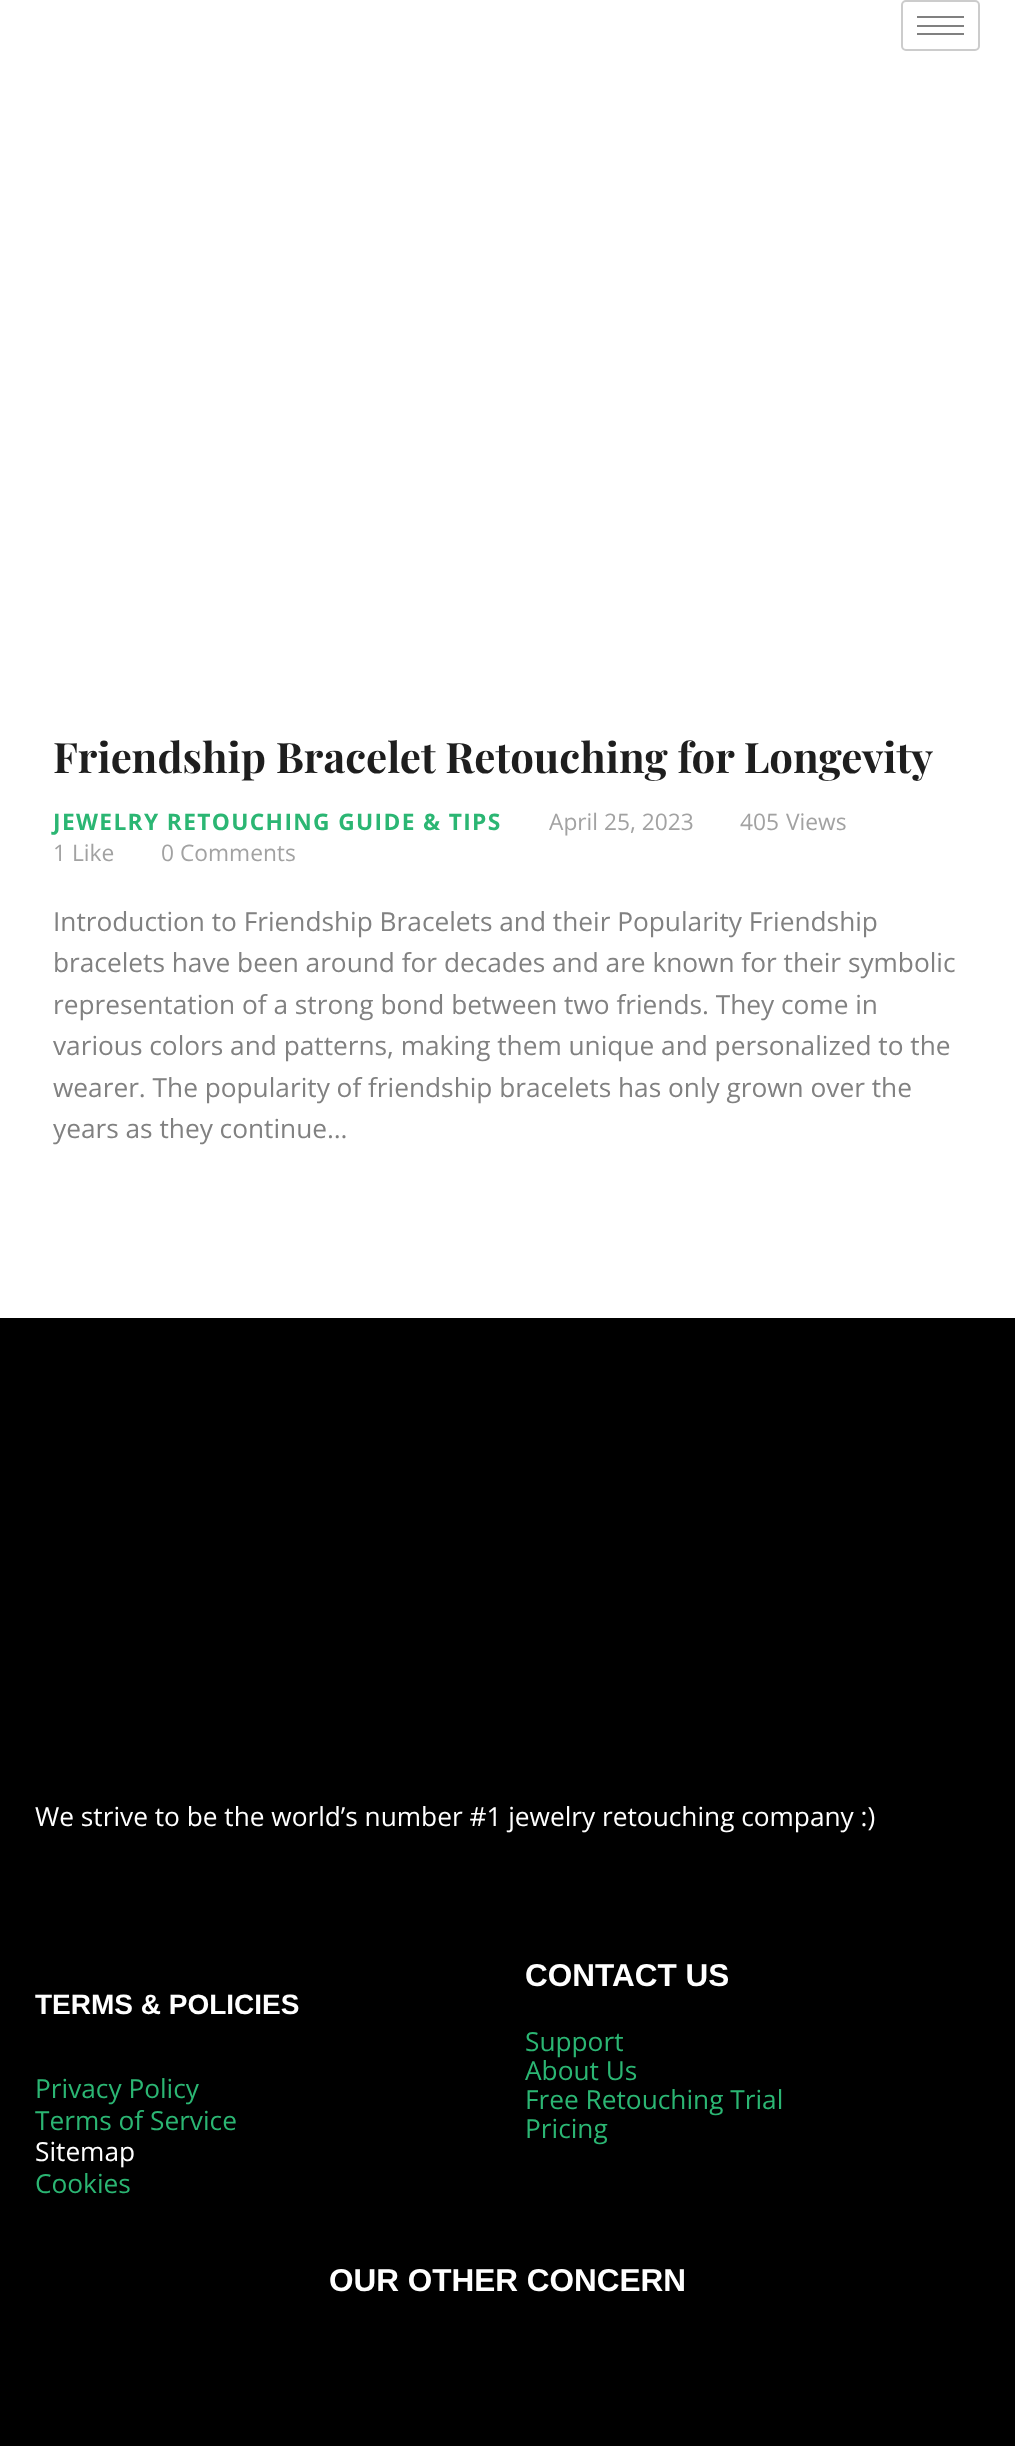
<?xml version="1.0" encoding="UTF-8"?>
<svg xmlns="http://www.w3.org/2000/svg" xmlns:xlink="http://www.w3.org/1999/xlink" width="1015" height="2446">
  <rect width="100%" height="100%" fill="#ffffff" />
  <rect x="902" y="1" width="77" height="49" rx="4" fill="none" stroke="#cccccc" stroke-width="2" />
  <rect x="917" y="16" width="47" height="2" fill="#808080" />
  <rect x="917" y="25" width="47" height="2" fill="#808080" />
  <rect x="917" y="33" width="47" height="2" fill="#808080" />
  <rect y="1318" width="1015" height="1128" fill="#000000" />
  <text x="53" y="773" style="font-family: Playfair Display; font-size: 42px; font-weight: bold; fill: #1e1e1e">Friendship Bracelet Retouching for Longevity</text>
  <text x="53" y="830" style="font-family: Open Sans; font-size: 22.75px; font-weight: bold; letter-spacing: 1.35px; fill: #2bb673">JEWELRY RETOUCHING GUIDE &amp; TIPS</text>
  <text x="549" y="830" style="font-family: Open Sans; font-size: 22.75px; fill: #a2a2a2">April 25, 2023</text>
  <text x="740" y="830" style="font-family: Open Sans; font-size: 22.75px; fill: #a2a2a2">405</text>
  <text x="786" y="830" style="font-family: Open Sans; font-size: 22.75px; fill: #a2a2a2">Views</text>
  <text x="53" y="861" style="font-family: Open Sans; font-size: 22.75px; fill: #a2a2a2">1</text>
  <text x="72" y="861" style="font-family: Open Sans; font-size: 22.75px; fill: #a2a2a2">Like</text>
  <text x="161" y="861" style="font-family: Open Sans; font-size: 22.75px; fill: #a2a2a2">0</text>
  <text x="180" y="861" style="font-family: Open Sans; font-size: 22.75px; fill: #a2a2a2">Comments</text>
  <text x="53" y="931" style="font-family: Open Sans; font-size: 26.25px; fill: #818181">Introduction to Friendship Bracelets and their Popularity Friendship</text>
  <text x="53" y="972" style="font-family: Open Sans; font-size: 26.25px; fill: #818181">bracelets have been around for decades and are known for their symbolic</text>
  <text x="53" y="1014" style="font-family: Open Sans; font-size: 26.25px; fill: #818181">representation of a strong bond between two friends. They come in</text>
  <text x="53" y="1055" style="font-family: Open Sans; font-size: 26.25px; fill: #818181">various colors and patterns, making them unique and personalized to the</text>
  <text x="53" y="1097" style="font-family: Open Sans; font-size: 26.25px; fill: #818181">wearer. The popularity of friendship bracelets has only grown over the</text>
  <text x="53" y="1138" style="font-family: Open Sans; font-size: 26.25px; fill: #818181">years as they continue…</text>
  <text x="35" y="1826" style="font-family: Open Sans; font-size: 26.25px; fill: #ffffff">We strive to be the world’s number #1 jewelry retouching company :)</text>
  <text x="35" y="2014" style="font-family: Liberation Sans; font-size: 28px; font-weight: bold; fill: #ffffff">TERMS &amp; POLICIES</text>
  <text x="35" y="2098" style="font-family: Open Sans; font-size: 26.25px; fill: #2bb673">Privacy Policy</text>
  <text x="35" y="2130" style="font-family: Open Sans; font-size: 26.25px; fill: #2bb673">Terms of Service</text>
  <text x="35" y="2161" style="font-family: Open Sans; font-size: 26.25px; fill: #ffffff">Sitemap</text>
  <text x="35" y="2193" style="font-family: Open Sans; font-size: 26.25px; fill: #2bb673">Cookies</text>
  <text x="525" y="1986" style="font-family: Liberation Sans; font-size: 31.5px; font-weight: bold; fill: #ffffff">CONTACT US</text>
  <text x="525" y="2051" style="font-family: Open Sans; font-size: 26.25px; fill: #2bb673">Support</text>
  <text x="525" y="2080" style="font-family: Open Sans; font-size: 26.25px; fill: #2bb673">About Us</text>
  <text x="525" y="2109" style="font-family: Open Sans; font-size: 26.25px; fill: #2bb673">Free Retouching Trial</text>
  <text x="525" y="2138" style="font-family: Open Sans; font-size: 26.25px; fill: #2bb673">Pricing</text>
  <text x="329" y="2291" style="font-family: Liberation Sans; font-size: 31.5px; font-weight: bold; fill: #ffffff">OUR OTHER CONCERN</text>
</svg>
